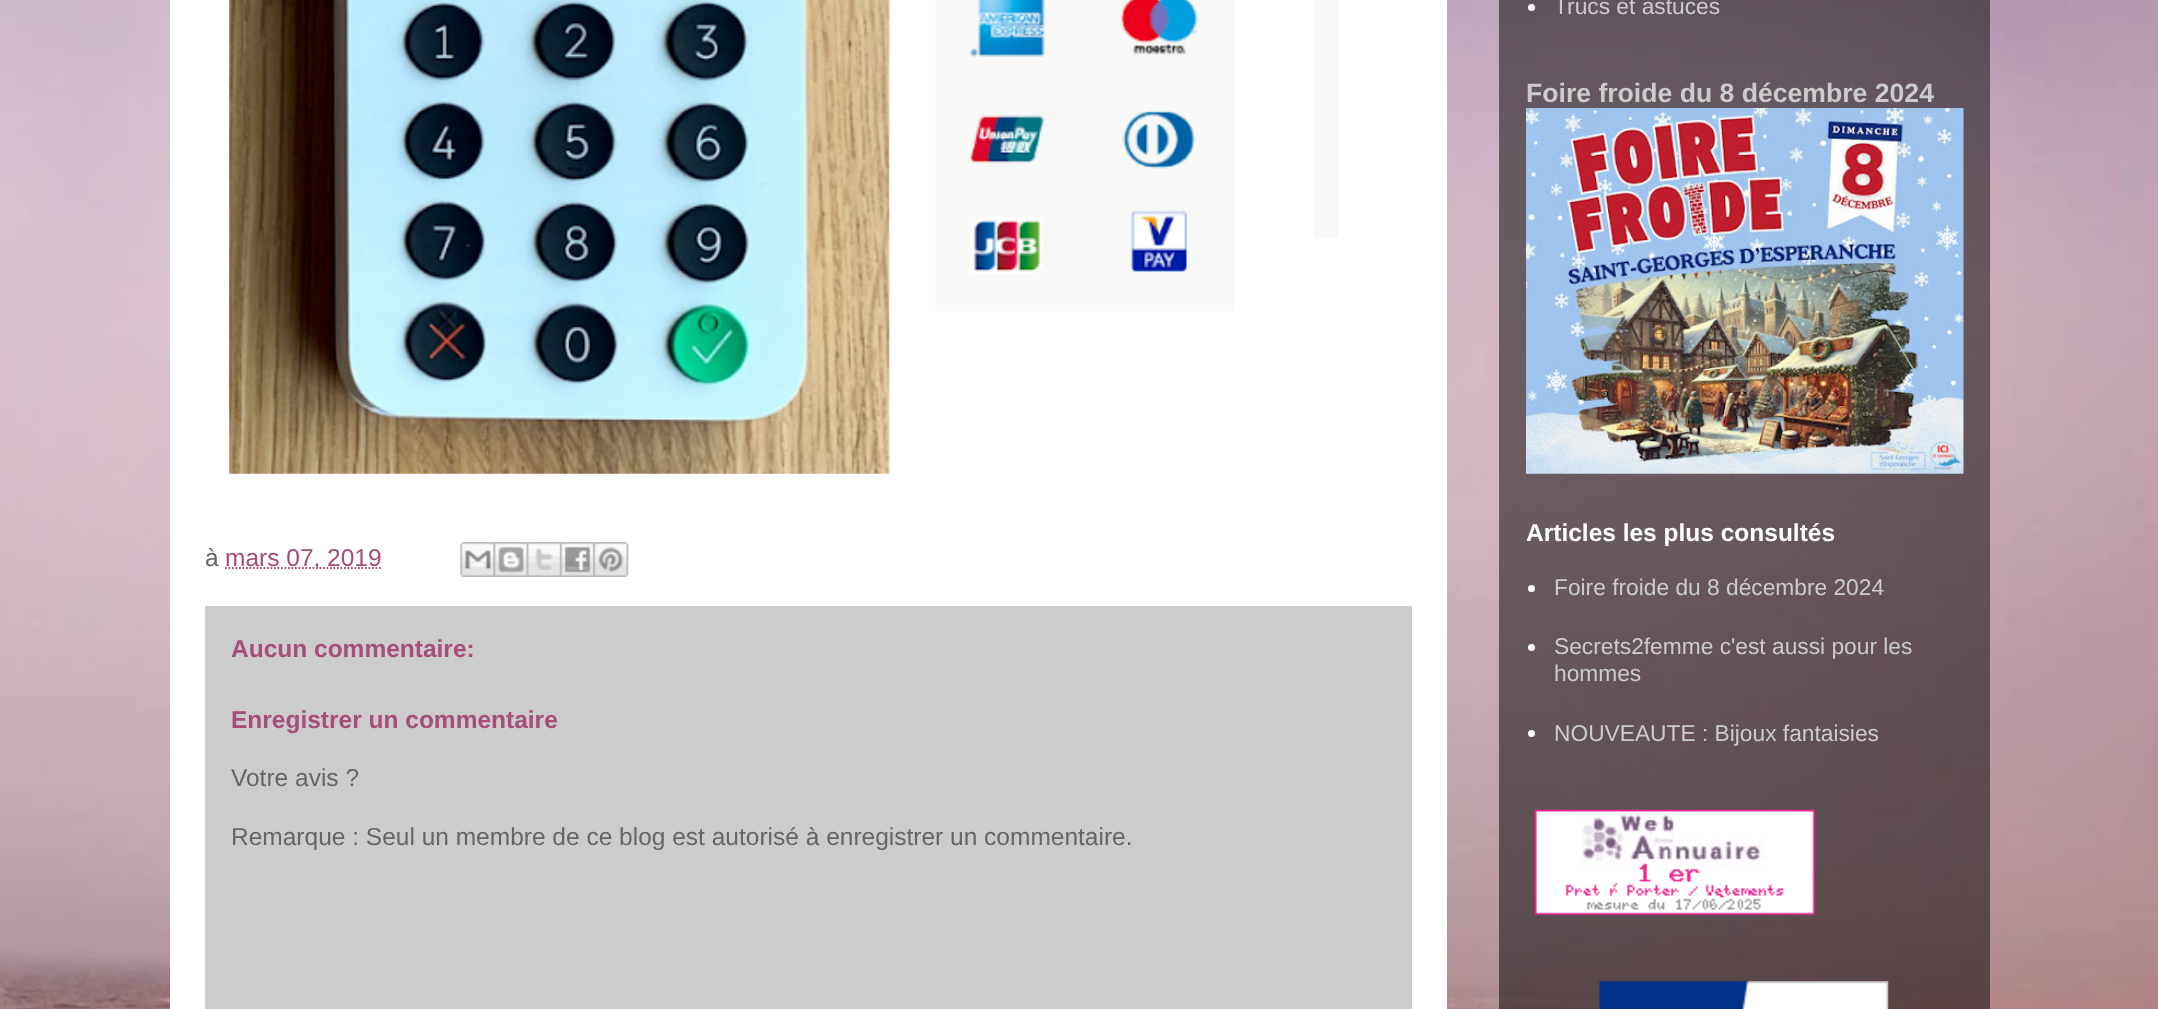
<?xml version="1.0" encoding="UTF-8"?>
<svg xmlns="http://www.w3.org/2000/svg" xmlns:xlink="http://www.w3.org/1999/xlink" width="2158" height="1009">
  <rect width="100%" height="100%" fill="#ffffff" />
  <image x="0" y="0" width="2158" height="1009" xlink:href="image1.png" />
  <rect x="170" width="1277" height="1009" fill="#ffffff" />
  <image x="229" y="0" width="1110" height="474" xlink:href="image2.png" />
  <path d="M 225 568 h 157" fill="none" stroke="#a64d79" stroke-width="1.8" stroke-dasharray="1.75 1.75" />
  <image x="460" y="542" width="34" height="35" xlink:href="image3.png" />
  <image x="493" y="542" width="34" height="35" xlink:href="image4.png" />
  <image x="526" y="542" width="34" height="35" xlink:href="image5.png" />
  <image x="560" y="542" width="34" height="35" xlink:href="image6.png" />
  <image x="593" y="542" width="36" height="35" xlink:href="image7.png" />
  <rect x="205" y="606" width="1207" height="403" fill="#cccccc" />
  <rect x="1499" width="491" height="1009" fill="#000000" fill-opacity="0.5" />
  <circle cx="1531.5" cy="7.5" r="3.5" fill="#ffffff" />
  <image x="1526" y="108" width="438" height="366" xlink:href="image8.png" />
  <circle cx="1531.5" cy="588.5" r="3.5" fill="#ffffff" />
  <circle cx="1531.5" cy="647.5" r="3.5" fill="#ffffff" />
  <circle cx="1531.5" cy="733.5" r="3.5" fill="#ffffff" />
  <image x="1534" y="809" width="281" height="106" xlink:href="image9.png" />
  <image x="1599" y="981" width="290" height="28" xlink:href="image10.png" />
  <text x="205" y="566" style="font-family: Liberation Sans; font-size: 24.5px; fill: #666666">à</text>
  <text x="225" y="566" style="font-family: Liberation Sans; font-size: 24.5px; fill: #a64d79">mars 07, 2019</text>
  <text x="231" y="657" style="font-family: Liberation Sans; font-size: 24.5px; font-weight: bold; fill: #a64d79">Aucun commentaire:</text>
  <text x="231" y="728" style="font-family: Liberation Sans; font-size: 24.5px; font-weight: bold; fill: #a64d79">Enregistrer un commentaire</text>
  <text x="231" y="786" style="font-family: Liberation Sans; font-size: 24.5px; fill: #666666">Votre avis ?</text>
  <text x="231" y="845" style="font-family: Liberation Sans; font-size: 24.5px; fill: #666666">Remarque : Seul un membre de ce blog est autorisé à enregistrer un commentaire.</text>
  <text x="1554" y="14" style="font-family: Liberation Sans; font-size: 22.75px; fill: #cccccc">Trucs et astuces</text>
  <text x="1526" y="102" style="font-family: Liberation Sans; font-size: 26.6px; font-weight: bold; fill: #cccccc">Foire froide du 8 décembre 2024</text>
  <text x="1526" y="541" style="font-family: Liberation Sans; font-size: 24.5px; font-weight: bold; fill: #ffffff">Articles les plus consultés</text>
  <text x="1554" y="595" style="font-family: Liberation Sans; font-size: 22.75px; fill: #cccccc">Foire froide du 8 décembre 2024</text>
  <text x="1554" y="654" style="font-family: Liberation Sans; font-size: 22.75px; fill: #cccccc">Secrets2femme c'est aussi pour les</text>
  <text x="1554" y="681" style="font-family: Liberation Sans; font-size: 22.75px; fill: #cccccc">hommes</text>
  <text x="1554" y="741" style="font-family: Liberation Sans; font-size: 22.75px; fill: #cccccc">NOUVEAUTE : Bijoux fantaisies</text>
</svg>
